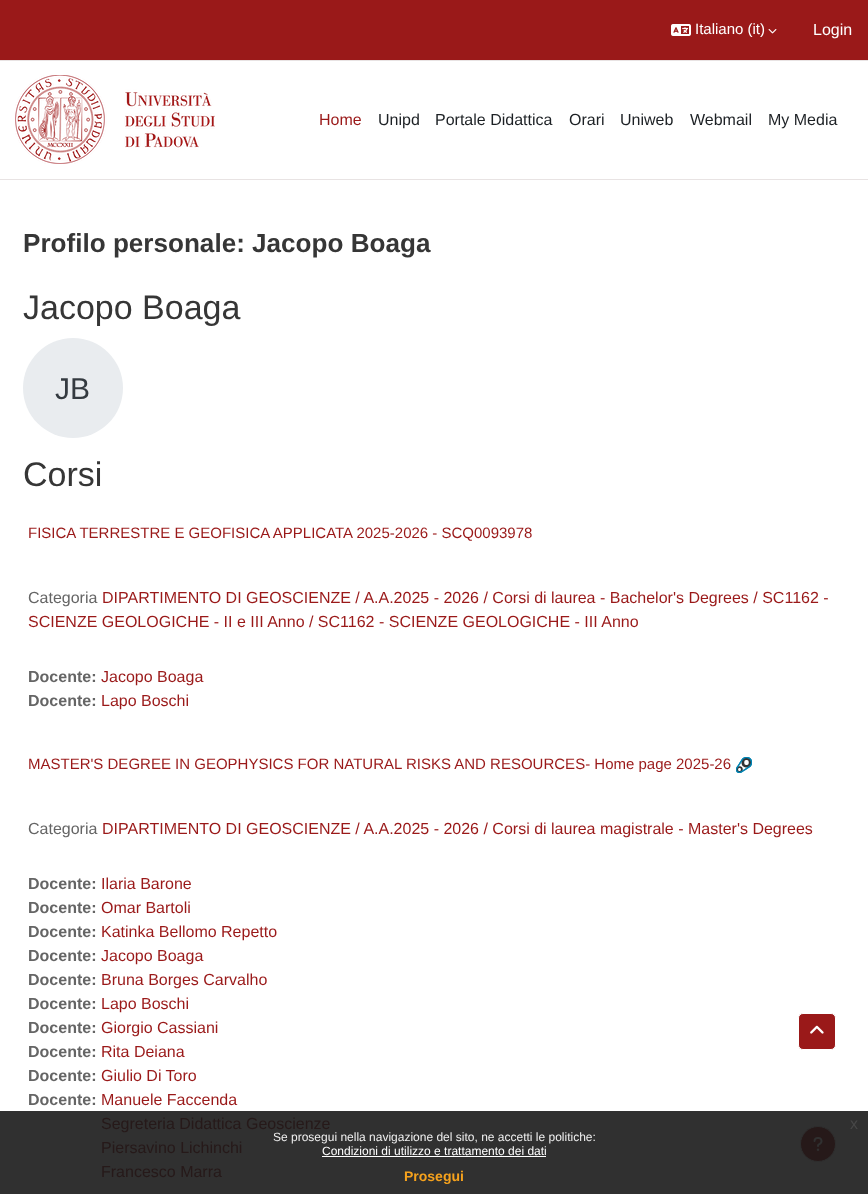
<?xml version="1.0" encoding="UTF-8"?>
<svg xmlns="http://www.w3.org/2000/svg" xmlns:xlink="http://www.w3.org/1999/xlink" width="868" height="1194">
  <rect width="100%" height="100%" fill="#ffffff" />
  <rect y="1111" width="868" height="83" fill="#303030" />
  <rect width="868" height="60" fill="#9a1919" />
  <rect y="60" width="868" height="1" fill="#e8e3e3" />
  <image x="671" y="24" width="20" height="12" xlink:href="image1.png" />
  <image x="768" y="29" width="9" height="5" xlink:href="image2.png" />
  <rect y="179" width="868" height="1" fill="#e8e3e3" />
  <image x="15" y="75" width="200" height="89" xlink:href="image3.png" />
  <circle cx="73" cy="388" r="50" fill="#e9ecef" />
  <image x="736" y="757" width="16" height="16" xlink:href="image4.png" />
  <rect x="798.5" y="1013.5" width="37" height="36" rx="4.5" fill="#9a1919" stroke="#ffffff" />
  <image x="810" y="1025" width="14" height="9" xlink:href="image5.png" />
  <circle cx="818" cy="1144" r="17.5" fill="#261919" stroke="#2e2e2e" />
  <image x="813" y="1137" width="10" height="14" xlink:href="image6.png" />
  <rect x="322" y="1156" width="224" height="1" fill="#ffffff" />
  <text x="695" y="34" style="font-family: Liberation Sans; font-size: 15px; fill: #ffffff">Italiano (it)</text>
  <text x="813" y="35" style="font-family: Liberation Sans; font-size: 16px; fill: #ffffff">Login</text>
  <text x="319" y="125" style="font-family: Liberation Sans; font-size: 16px; fill: #9a1919">Home</text>
  <text x="378" y="125" style="font-family: Liberation Sans; font-size: 16px; fill: #1d2125">Unipd</text>
  <text x="435" y="125" style="font-family: Liberation Sans; font-size: 16px; fill: #1d2125">Portale Didattica</text>
  <text x="569" y="125" style="font-family: Liberation Sans; font-size: 16px; fill: #1d2125">Orari</text>
  <text x="620" y="125" style="font-family: Liberation Sans; font-size: 16px; fill: #1d2125">Uniweb</text>
  <text x="690" y="125" style="font-family: Liberation Sans; font-size: 16px; fill: #1d2125">Webmail</text>
  <text x="768" y="125" style="font-family: Liberation Sans; font-size: 16px; fill: #1d2125">My Media</text>
  <text x="23" y="252" style="font-family: Liberation Sans; font-size: 26.1px; font-weight: bold; fill: #363636">Profilo personale: Jacopo Boaga</text>
  <text x="23" y="319" style="font-family: Liberation Sans; font-size: 34px; fill: #363636">Jacopo Boaga</text>
  <text x="55" y="399" style="font-family: Liberation Sans; font-size: 30px; fill: #343a40">JB</text>
  <text x="23" y="486" style="font-family: Liberation Sans; font-size: 34px; fill: #363636">Corsi</text>
  <text x="28" y="538" style="font-family: Liberation Sans; font-size: 15px; fill: #9a1919">FISICA TERRESTRE E GEOFISICA APPLICATA 2025-2026 - SCQ0093978</text>
  <text x="28" y="603" style="font-family: Liberation Sans; font-size: 16px; fill: #656565">Categoria</text>
  <text x="102" y="603" style="font-family: Liberation Sans; font-size: 16px; fill: #9a1919">DIPARTIMENTO DI GEOSCIENZE / A.A.2025 - 2026 / Corsi di laurea - Bachelor's Degrees / SC1162 -</text>
  <text x="28" y="627" style="font-family: Liberation Sans; font-size: 16px; fill: #9a1919">SCIENZE GEOLOGICHE - II e III Anno / SC1162 - SCIENZE GEOLOGICHE - III Anno</text>
  <text x="28" y="682" style="font-family: Liberation Sans; font-size: 16px; font-weight: bold; fill: #656565">Docente:</text>
  <text x="101" y="682" style="font-family: Liberation Sans; font-size: 16px; fill: #9a1919">Jacopo Boaga</text>
  <text x="28" y="706" style="font-family: Liberation Sans; font-size: 16px; font-weight: bold; fill: #656565">Docente:</text>
  <text x="101" y="706" style="font-family: Liberation Sans; font-size: 16px; fill: #9a1919">Lapo Boschi</text>
  <text x="28" y="769" style="font-family: Liberation Sans; font-size: 15px; fill: #9a1919">MASTER'S DEGREE IN GEOPHYSICS FOR NATURAL RISKS AND RESOURCES- Home page 2025-26</text>
  <text x="28" y="834" style="font-family: Liberation Sans; font-size: 16px; fill: #656565">Categoria</text>
  <text x="102" y="834" style="font-family: Liberation Sans; font-size: 16px; fill: #9a1919">DIPARTIMENTO DI GEOSCIENZE / A.A.2025 - 2026 / Corsi di laurea magistrale - Master's Degrees</text>
  <text x="28" y="889" style="font-family: Liberation Sans; font-size: 16px; font-weight: bold; fill: #656565">Docente:</text>
  <text x="101" y="889" style="font-family: Liberation Sans; font-size: 16px; fill: #9a1919">Ilaria Barone</text>
  <text x="28" y="913" style="font-family: Liberation Sans; font-size: 16px; font-weight: bold; fill: #656565">Docente:</text>
  <text x="101" y="913" style="font-family: Liberation Sans; font-size: 16px; fill: #9a1919">Omar Bartoli</text>
  <text x="28" y="937" style="font-family: Liberation Sans; font-size: 16px; font-weight: bold; fill: #656565">Docente:</text>
  <text x="101" y="937" style="font-family: Liberation Sans; font-size: 16px; fill: #9a1919">Katinka Bellomo Repetto</text>
  <text x="28" y="961" style="font-family: Liberation Sans; font-size: 16px; font-weight: bold; fill: #656565">Docente:</text>
  <text x="101" y="961" style="font-family: Liberation Sans; font-size: 16px; fill: #9a1919">Jacopo Boaga</text>
  <text x="28" y="985" style="font-family: Liberation Sans; font-size: 16px; font-weight: bold; fill: #656565">Docente:</text>
  <text x="101" y="985" style="font-family: Liberation Sans; font-size: 16px; fill: #9a1919">Bruna Borges Carvalho</text>
  <text x="28" y="1009" style="font-family: Liberation Sans; font-size: 16px; font-weight: bold; fill: #656565">Docente:</text>
  <text x="101" y="1009" style="font-family: Liberation Sans; font-size: 16px; fill: #9a1919">Lapo Boschi</text>
  <text x="28" y="1033" style="font-family: Liberation Sans; font-size: 16px; font-weight: bold; fill: #656565">Docente:</text>
  <text x="101" y="1033" style="font-family: Liberation Sans; font-size: 16px; fill: #9a1919">Giorgio Cassiani</text>
  <text x="28" y="1057" style="font-family: Liberation Sans; font-size: 16px; font-weight: bold; fill: #656565">Docente:</text>
  <text x="101" y="1057" style="font-family: Liberation Sans; font-size: 16px; fill: #9a1919">Rita Deiana</text>
  <text x="28" y="1081" style="font-family: Liberation Sans; font-size: 16px; font-weight: bold; fill: #656565">Docente:</text>
  <text x="101" y="1081" style="font-family: Liberation Sans; font-size: 16px; fill: #9a1919">Giulio Di Toro</text>
  <text x="28" y="1105" style="font-family: Liberation Sans; font-size: 16px; font-weight: bold; fill: #656565">Docente:</text>
  <text x="101" y="1105" style="font-family: Liberation Sans; font-size: 16px; fill: #9a1919">Manuele Faccenda</text>
  <text x="101" y="1129" style="font-family: Liberation Sans; font-size: 16px; fill: #261919">Segreteria Didattica Geoscienze</text>
  <text x="101" y="1153" style="font-family: Liberation Sans; font-size: 16px; fill: #261919">Piersavino Lichinchi</text>
  <text x="101" y="1177" style="font-family: Liberation Sans; font-size: 16px; fill: #261919">Francesco Marra</text>
  <text x="850" y="1129" style="font-family: Liberation Sans; font-size: 16px; fill: #474747">x</text>
  <text x="273" y="1141" style="font-family: Liberation Sans; font-size: 12px; fill: #efefef">Se prosegui nella navigazione del sito, ne accetti le politiche:</text>
  <text x="322" y="1155" style="font-family: Liberation Sans; font-size: 12px; fill: #ffffff">Condizioni di utilizzo e trattamento dei dati</text>
  <text x="404" y="1181" style="font-family: Liberation Sans; font-size: 14px; font-weight: bold; fill: #f6a21d">Prosegui</text>
</svg>
